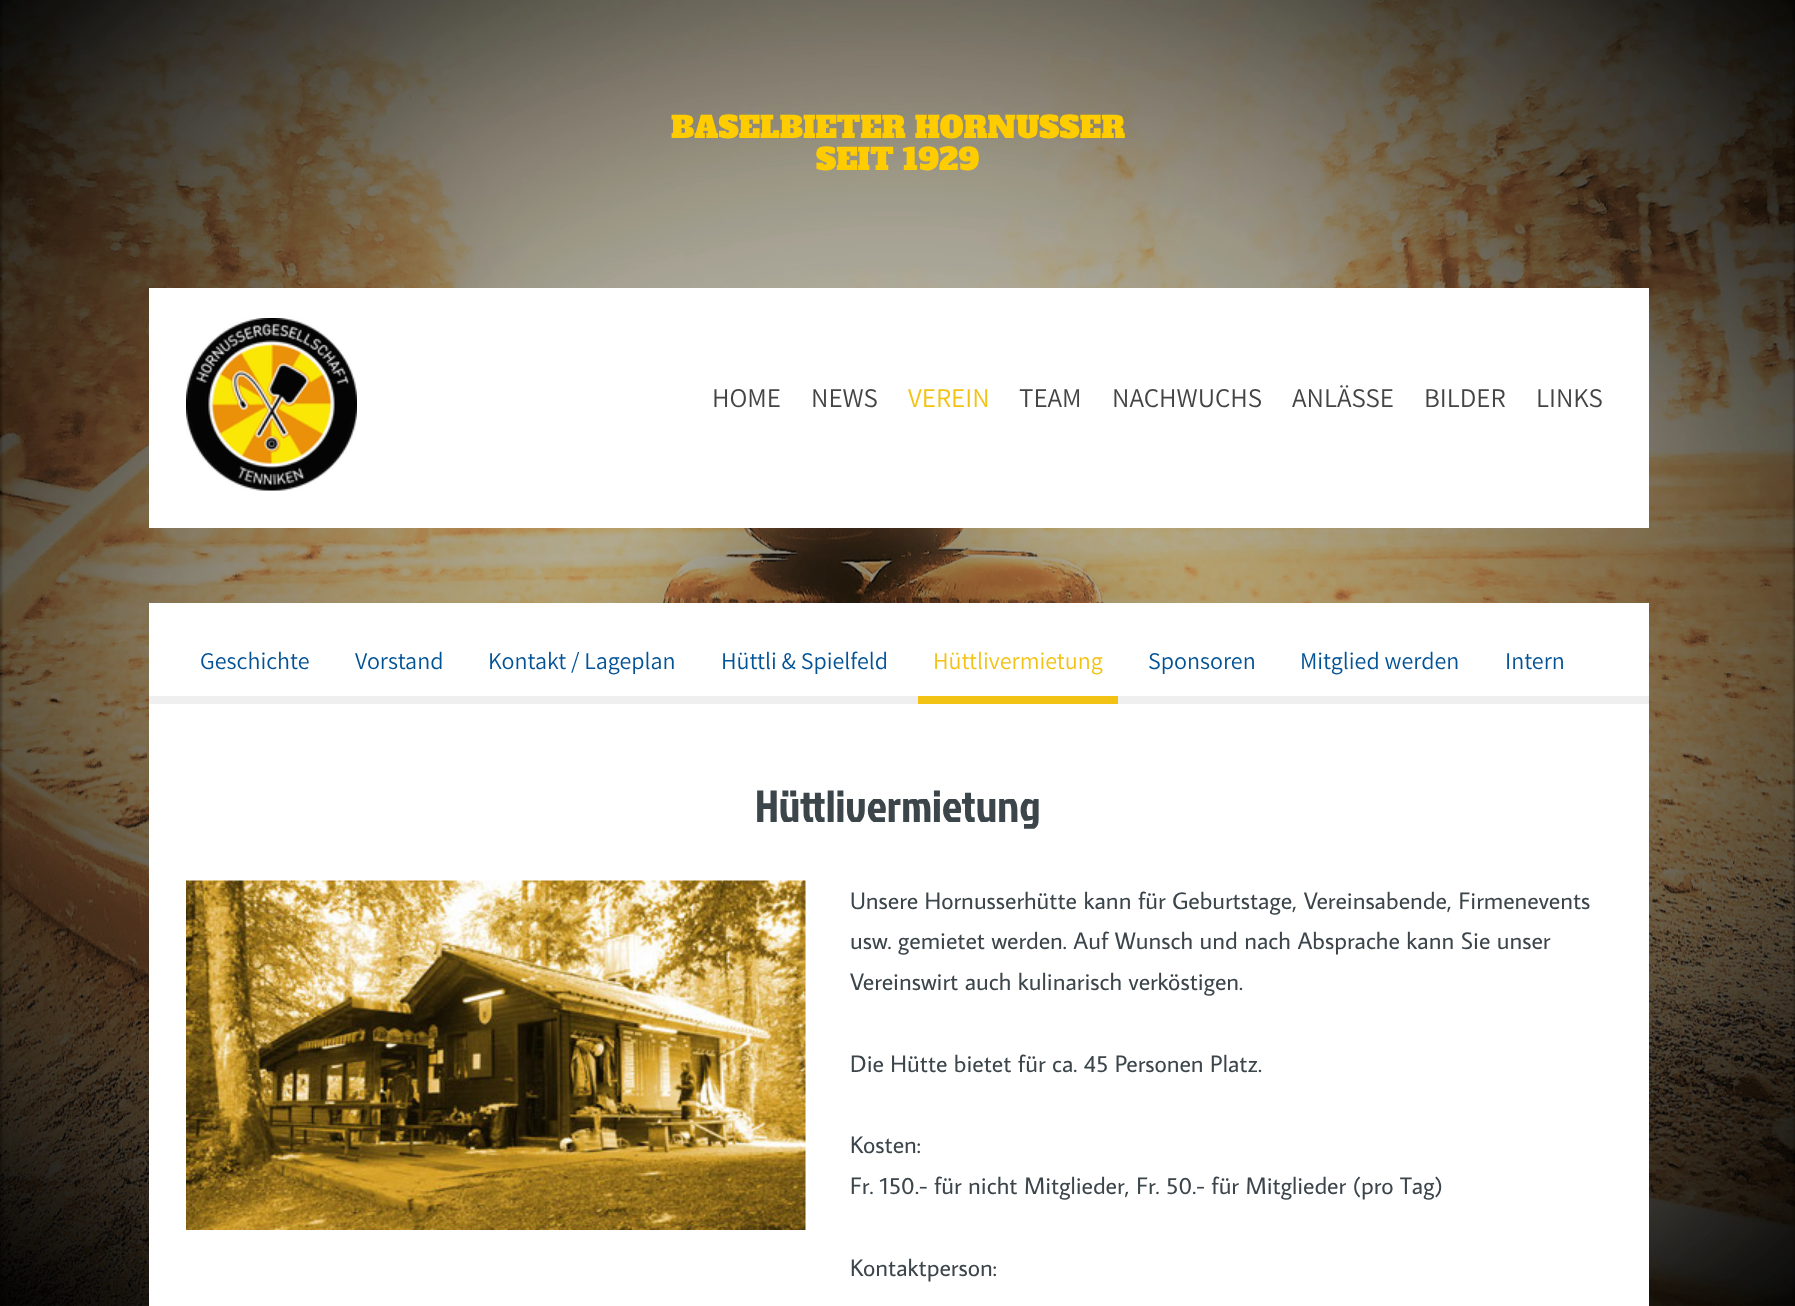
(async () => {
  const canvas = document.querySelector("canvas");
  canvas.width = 1795;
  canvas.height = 1306;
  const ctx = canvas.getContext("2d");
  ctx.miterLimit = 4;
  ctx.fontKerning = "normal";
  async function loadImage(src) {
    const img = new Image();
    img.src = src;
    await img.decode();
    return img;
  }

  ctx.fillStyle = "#ffffff";
  ctx.fillRect(0, 0, 1795, 1306);
  ctx.drawImage(await loadImage("img/1.png"), 0, 0, 1795, 1306);
  ctx.fillRect(149, 288, 1500, 240);
  ctx.drawImage(await loadImage("img/2.png"), 186, 318, 171, 173);
  for (const [x, y, w, h, color] of [
    [149, 603, 1500, 703, "#ffffff"],
    [149, 696, 1500, 8, "#efefef"],
    [918, 696, 200, 8, "#f2c314"],
  ]) {
    ctx.fillStyle = color;
    ctx.fillRect(x, y, w, h);
  }
  ctx.drawImage(await loadImage("img/3.png"), 186, 880, 620, 350);
  ctx.font = "30px Alfa Slab One";
  ctx.fillStyle = "#ffcc00";
  ctx.fillText("BASELBIETER HORNUSSER", 671, 138);
  ctx.fillText("SEIT 1929", 816, 170);
  ctx.font = "200 27px Assistant";
  ctx.fillStyle = "#444444";
  ctx.fillText("HOME", 712, 407);
  ctx.fillText("NEWS", 811, 407);
  ctx.fillStyle = "#f2c314";
  ctx.fillText("VEREIN", 908, 407);
  ctx.fillStyle = "#444444";
  for (const [text, x, y] of [
    ["TEAM", 1019, 407],
    ["NACHWUCHS", 1112, 407],
    ["ANLÄSSE", 1292, 407],
    ["BILDER", 1424, 407],
    ["LINKS", 1536, 407],
  ]) {
    ctx.fillText(text, x, y);
  }
  ctx.font = "200 24px Assistant";
  ctx.fillStyle = "#025296";
  for (const [text, x, y] of [
    ["Geschichte", 200, 669],
    ["Vorstand", 355, 669],
    ["Kontakt / Lageplan", 488, 669],
    ["Hüttli & Spielfeld", 721, 669],
  ]) {
    ctx.fillText(text, x, y);
  }
  ctx.fillStyle = "#f2c314";
  ctx.fillText("Hüttlivermietung", 933, 669);
  ctx.fillStyle = "#025296";
  for (const [text, x, y] of [
    ["Sponsoren", 1148, 669],
    ["Mitglied werden", 1300, 669],
    ["Intern", 1505, 669],
  ]) {
    ctx.fillText(text, x, y);
  }
  ctx.font = "45px Jockey One";
  ctx.fillStyle = "#3b454a";
  ctx.fillText("Hüttlivermietung", 755, 822);
  ctx.font = "24px Average Sans";
  for (const [text, x, y] of [
    ["Unsere Hornusserhütte kann für Geburtstage, Vereinsabende, Firmenevents", 850, 909],
    ["usw. gemietet werden. Auf Wunsch und nach Absprache kann Sie unser", 850, 949],
    ["Vereinswirt auch kulinarisch verköstigen.", 850, 990],
    ["Die Hütte bietet für ca. 45 Personen Platz.", 850, 1072],
    ["Kosten:", 850, 1153],
    ["Fr. 150.- für nicht Mitglieder, Fr. 50.- für Mitglieder (pro Tag)", 850, 1194],
    ["Kontaktperson:", 850, 1276],
  ]) {
    ctx.fillText(text, x, y);
  }
})();
